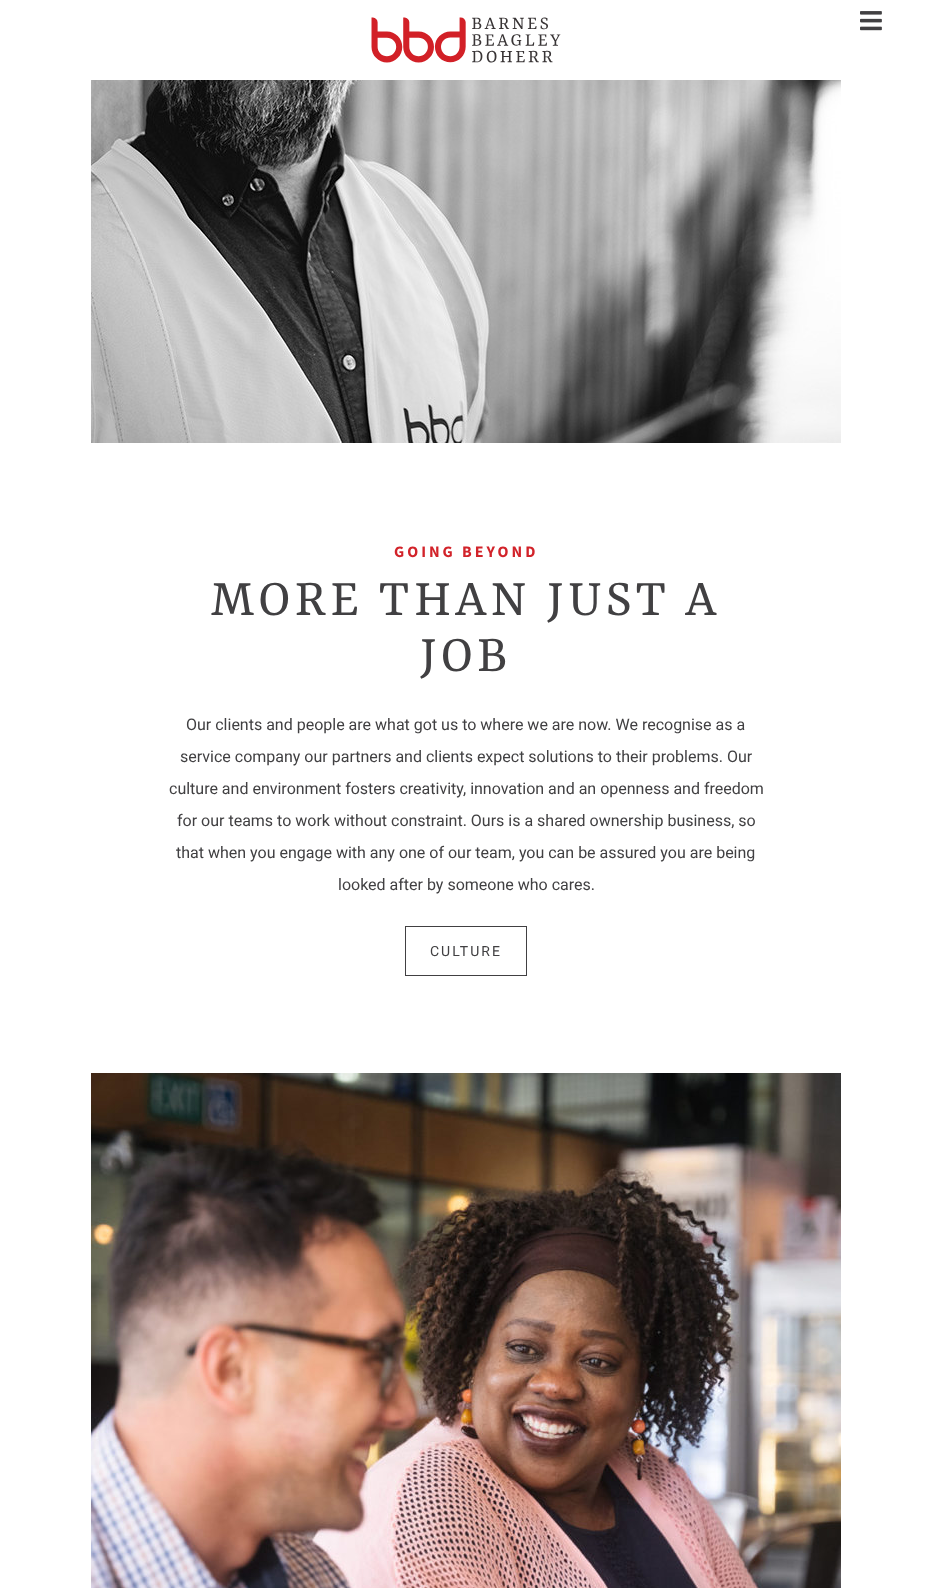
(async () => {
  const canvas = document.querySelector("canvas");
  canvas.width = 932;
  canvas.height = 1588;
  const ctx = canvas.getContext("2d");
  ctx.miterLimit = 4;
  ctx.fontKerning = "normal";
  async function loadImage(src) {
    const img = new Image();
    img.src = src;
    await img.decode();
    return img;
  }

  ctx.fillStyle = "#ffffff";
  ctx.fillRect(0, 0, 932, 1588);
  ctx.drawImage(await loadImage("img/1.png"), 371, 17, 190, 46);
  ctx.drawImage(await loadImage("img/2.png"), 860, 11, 22, 20);
  ctx.drawImage(await loadImage("img/3.png"), 91, 80, 750, 363);
  ctx.strokeStyle = "#414042";
  ctx.strokeRect(405.5, 926.5, 121, 49);
  ctx.drawImage(await loadImage("img/4.png"), 91, 1073, 750, 515);
  ctx.letterSpacing = "3px";
  ctx.font = "bold 16px Source Sans Pro";
  ctx.fillStyle = "#d2232a";
  ctx.fillText("GOING BEYOND", 394, 557);
  ctx.letterSpacing = "4px";
  ctx.font = "56px Yrsa";
  ctx.fillStyle = "#414042";
  ctx.fillText("MORE THAN JUST A", 211, 615);
  ctx.fillText("JOB", 420, 671);
  ctx.letterSpacing = "0px";
  ctx.font = "16px Roboto";
  for (const [text, x, y] of [
    ["Our clients and people are what got us to where we are now. We recognise as a", 186, 730],
    ["service company our partners and clients expect solutions to their problems. Our", 180, 762],
    ["culture and environment fosters creativity, innovation and an openness and freedom", 169, 794],
    ["for our teams to work without constraint. Ours is a shared ownership business, so", 177, 826],
    ["that when you engage with any one of our team, you can be assured you are being", 176, 858],
    ["looked after by someone who cares.", 338, 890],
  ]) {
    ctx.fillText(text, x, y);
  }
  ctx.letterSpacing = "2px";
  ctx.font = "14px Roboto";
  ctx.fillText("CULTURE", 430, 956);
})();
